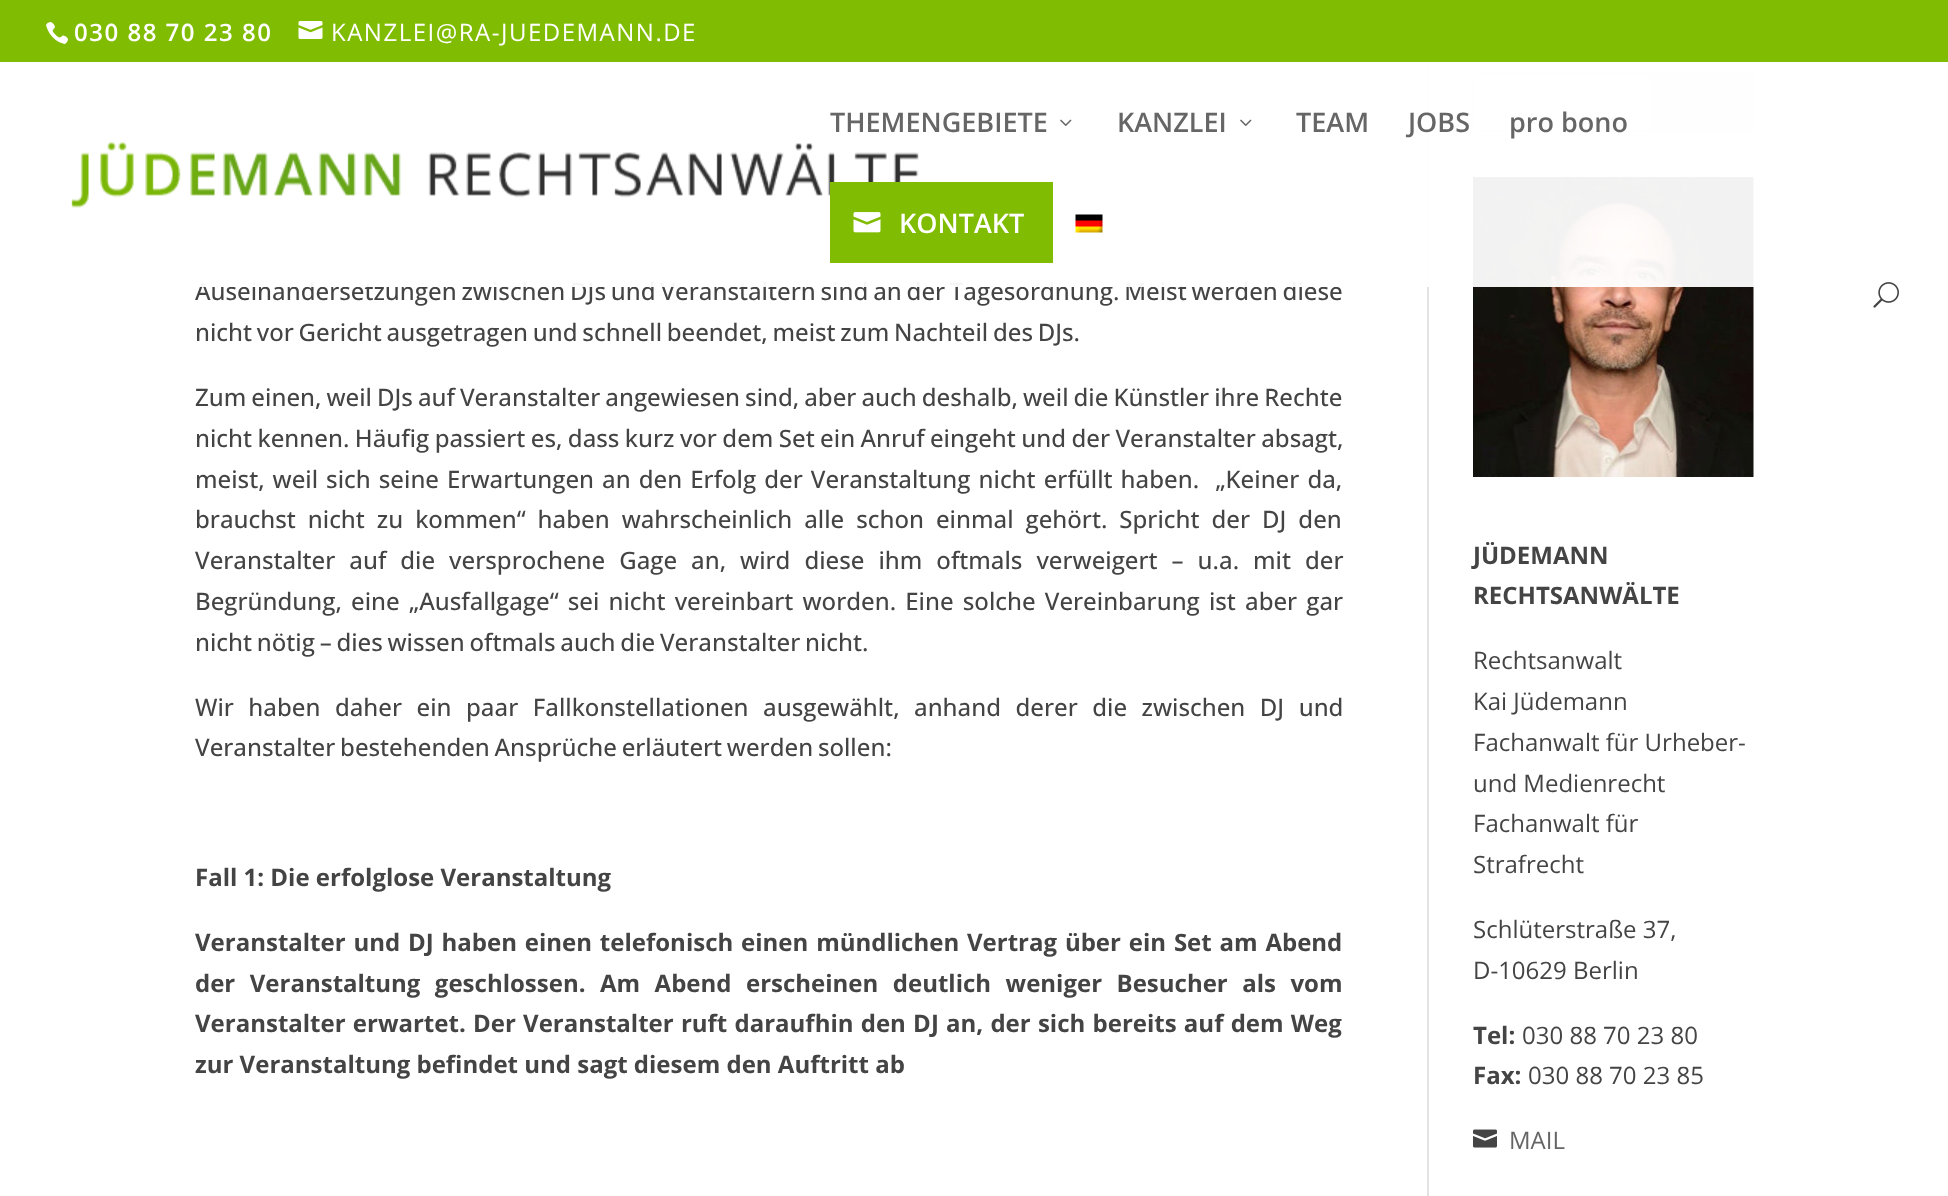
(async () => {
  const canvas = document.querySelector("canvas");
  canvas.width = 1948;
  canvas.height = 1196;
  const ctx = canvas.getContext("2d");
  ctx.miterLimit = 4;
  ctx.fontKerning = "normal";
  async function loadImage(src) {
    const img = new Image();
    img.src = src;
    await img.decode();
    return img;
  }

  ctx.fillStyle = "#ffffff";
  ctx.fillRect(0, 0, 1948, 1196);
  ctx.fillStyle = "#80bc02";
  ctx.fillRect(0, 0, 1948, 62);
  ctx.drawImage(await loadImage("img/1.png"), 46, 22, 22, 22);
  ctx.drawImage(await loadImage("img/2.png"), 298, 21, 25, 18);
  ctx.drawImage(await loadImage("img/7.png"), 1873, 282, 26, 26);
  ctx.fillStyle = "#e2e2e2";
  ctx.fillRect(1427, 62, 2, 1134);
  ctx.beginPath();
  ctx.roundRect(1474, 73, 279, 58, 4);
  ctx.strokeStyle = "#dddddd";
  ctx.lineWidth = 2;
  ctx.stroke();
  ctx.fillStyle = "#dddddd";
  ctx.beginPath();
  ctx.roundRect(1650, 73, 103, 58, [0, 4, 4, 0]);
  ctx.fill();
  ctx.stroke();
  ctx.drawImage(await loadImage("img/8.png"), 1473, 177, 281, 300);
  ctx.drawImage(await loadImage("img/9.png"), 1473, 1129, 24, 19);
  ctx.letterSpacing = "1.5px";
  ctx.font = "600 24px Open Sans";
  ctx.fillStyle = "#ffffff";
  ctx.fillText("030 88 70 23 80", 74, 41);
  ctx.font = "24px Open Sans";
  ctx.fillText("KANZLEI@RA-JUEDEMANN.DE", 331, 41);
  ctx.letterSpacing = "0px";
  ctx.wordSpacing = "-1.4px";
  ctx.font = "500 24px Open Sans";
  ctx.fillStyle = "#444444";
  ctx.fillText("Auseinandersetzungen zwischen DJs und Veranstaltern sind an der Tagesordnung. Meist werden diese", 195, 300);
  ctx.fillStyle = "rgba(255, 255, 255, 0.95)";
  ctx.fillRect(199, 62, 1555, 225);
  ctx.drawImage(await loadImage("img/6.png"), 1075, 214, 28, 19);
  ctx.drawImage(await loadImage("img/3.png"), 71, 141, 848, 67);
  ctx.fillStyle = "#80bc02";
  ctx.fillRect(830, 182, 223, 81);
  ctx.drawImage(await loadImage("img/5.png"), 853, 212, 28, 21);
  ctx.wordSpacing = "0px";
  ctx.font = "600 27px Open Sans";
  ctx.fillStyle = "#ffffff";
  ctx.fillText("KONTAKT", 899, 233);
  ctx.fillStyle = "#666666";
  for (const [text, x, y] of [
    ["pro bono", 1509, 132],
    ["JOBS", 1408, 132],
    ["TEAM", 1296, 132],
  ]) {
    ctx.fillText(text, x, y);
  }
  ctx.drawImage(await loadImage("img/4.png"), 1240, 119, 12, 7);
  ctx.fillText("KANZLEI", 1117, 132);
  ctx.drawImage(await loadImage("img/4.png"), 1060, 119, 12, 7);
  ctx.fillText("THEMENGEBIETE", 830, 132);
  ctx.wordSpacing = "-1.5px";
  ctx.font = "500 24px Open Sans";
  ctx.fillStyle = "#444444";
  ctx.fillText("nicht vor Gericht ausgetragen und schnell beendet, meist zum Nachteil des DJs.", 195, 341);
  ctx.wordSpacing = "-1.2px";
  ctx.fillText("Zum einen, weil DJs auf Veranstalter angewiesen sind, aber auch deshalb, weil die Künstler ihre Rechte", 195, 406);
  ctx.wordSpacing = "-0.8px";
  ctx.fillText("nicht kennen. Häufig passiert es, dass kurz vor dem Set ein Anruf eingeht und der Veranstalter absagt,", 195, 447);
  ctx.wordSpacing = "1.8px";
  ctx.fillText("meist, weil sich seine Erwartungen an den Erfolg der Veranstaltung nicht erfüllt haben.  „Keiner da,", 195, 488);
  ctx.wordSpacing = "5.75px";
  ctx.fillText("brauchst nicht zu kommen“ haben wahrscheinlich alle schon einmal gehört. Spricht der DJ den", 195, 528);
  ctx.wordSpacing = "7.75px";
  ctx.fillText("Veranstalter auf die versprochene Gage an, wird diese ihm oftmals verweigert – u.a. mit der", 195, 569);
  ctx.wordSpacing = "2.9px";
  ctx.fillText("Begründung, eine „Ausfallgage“ sei nicht vereinbart worden. Eine solche Vereinbarung ist aber gar", 195, 610);
  ctx.wordSpacing = "-1.5px";
  ctx.fillText("nicht nötig – dies wissen oftmals auch die Veranstalter nicht.", 195, 651);
  ctx.wordSpacing = "8.25px";
  ctx.fillText("Wir haben daher ein paar Fallkonstellationen ausgewählt, anhand derer die zwischen DJ und", 195, 716);
  ctx.wordSpacing = "-1.5px";
  ctx.fillText("Veranstalter bestehenden Ansprüche erläutert werden sollen:", 195, 756);
  ctx.wordSpacing = "0px";
  ctx.font = "bold 24px Open Sans";
  ctx.fillText("Fall 1: Die erfolglose Veranstaltung", 195, 886);
  ctx.wordSpacing = "1.6px";
  ctx.fillText("Veranstalter und DJ haben einen telefonisch einen mündlichen Vertrag über ein Set am Abend", 195, 951);
  ctx.wordSpacing = "8.25px";
  ctx.fillText("der Veranstaltung geschlossen. Am Abend erscheinen deutlich weniger Besucher als vom", 195, 992);
  ctx.wordSpacing = "1px";
  ctx.fillText("Veranstalter erwartet. Der Veranstalter ruft daraufhin den DJ an, der sich bereits auf dem Weg", 195, 1032);
  ctx.wordSpacing = "0px";
  for (const [text, x, y] of [
    ["zur Veranstaltung befindet und sagt diesem den Auftritt ab", 195, 1073],
    ["JÜDEMANN", 1473, 564],
    ["RECHTSANWÄLTE", 1473, 604],
  ]) {
    ctx.fillText(text, x, y);
  }
  ctx.font = "24px Open Sans";
  for (const [text, x, y] of [
    ["Rechtsanwalt", 1473, 669],
    ["Kai Jüdemann", 1473, 710],
    ["Fachanwalt für Urheber-", 1473, 751],
    ["und Medienrecht", 1473, 792],
    ["Fachanwalt für", 1473, 832],
    ["Strafrecht", 1473, 873],
    ["Schlüterstraße 37,", 1473, 938],
    ["D-10629 Berlin", 1473, 979],
  ]) {
    ctx.fillText(text, x, y);
  }
  ctx.font = "bold 24px Open Sans";
  ctx.fillText("Tel:", 1473, 1044);
  ctx.font = "24px Open Sans";
  ctx.fillText("030 88 70 23 80", 1522, 1044);
  ctx.font = "bold 24px Open Sans";
  ctx.fillText("Fax:", 1473, 1084);
  ctx.font = "24px Open Sans";
  ctx.fillText("030 88 70 23 85", 1528, 1084);
  ctx.fillStyle = "#666666";
  ctx.fillText("MAIL", 1509, 1149);
})();
